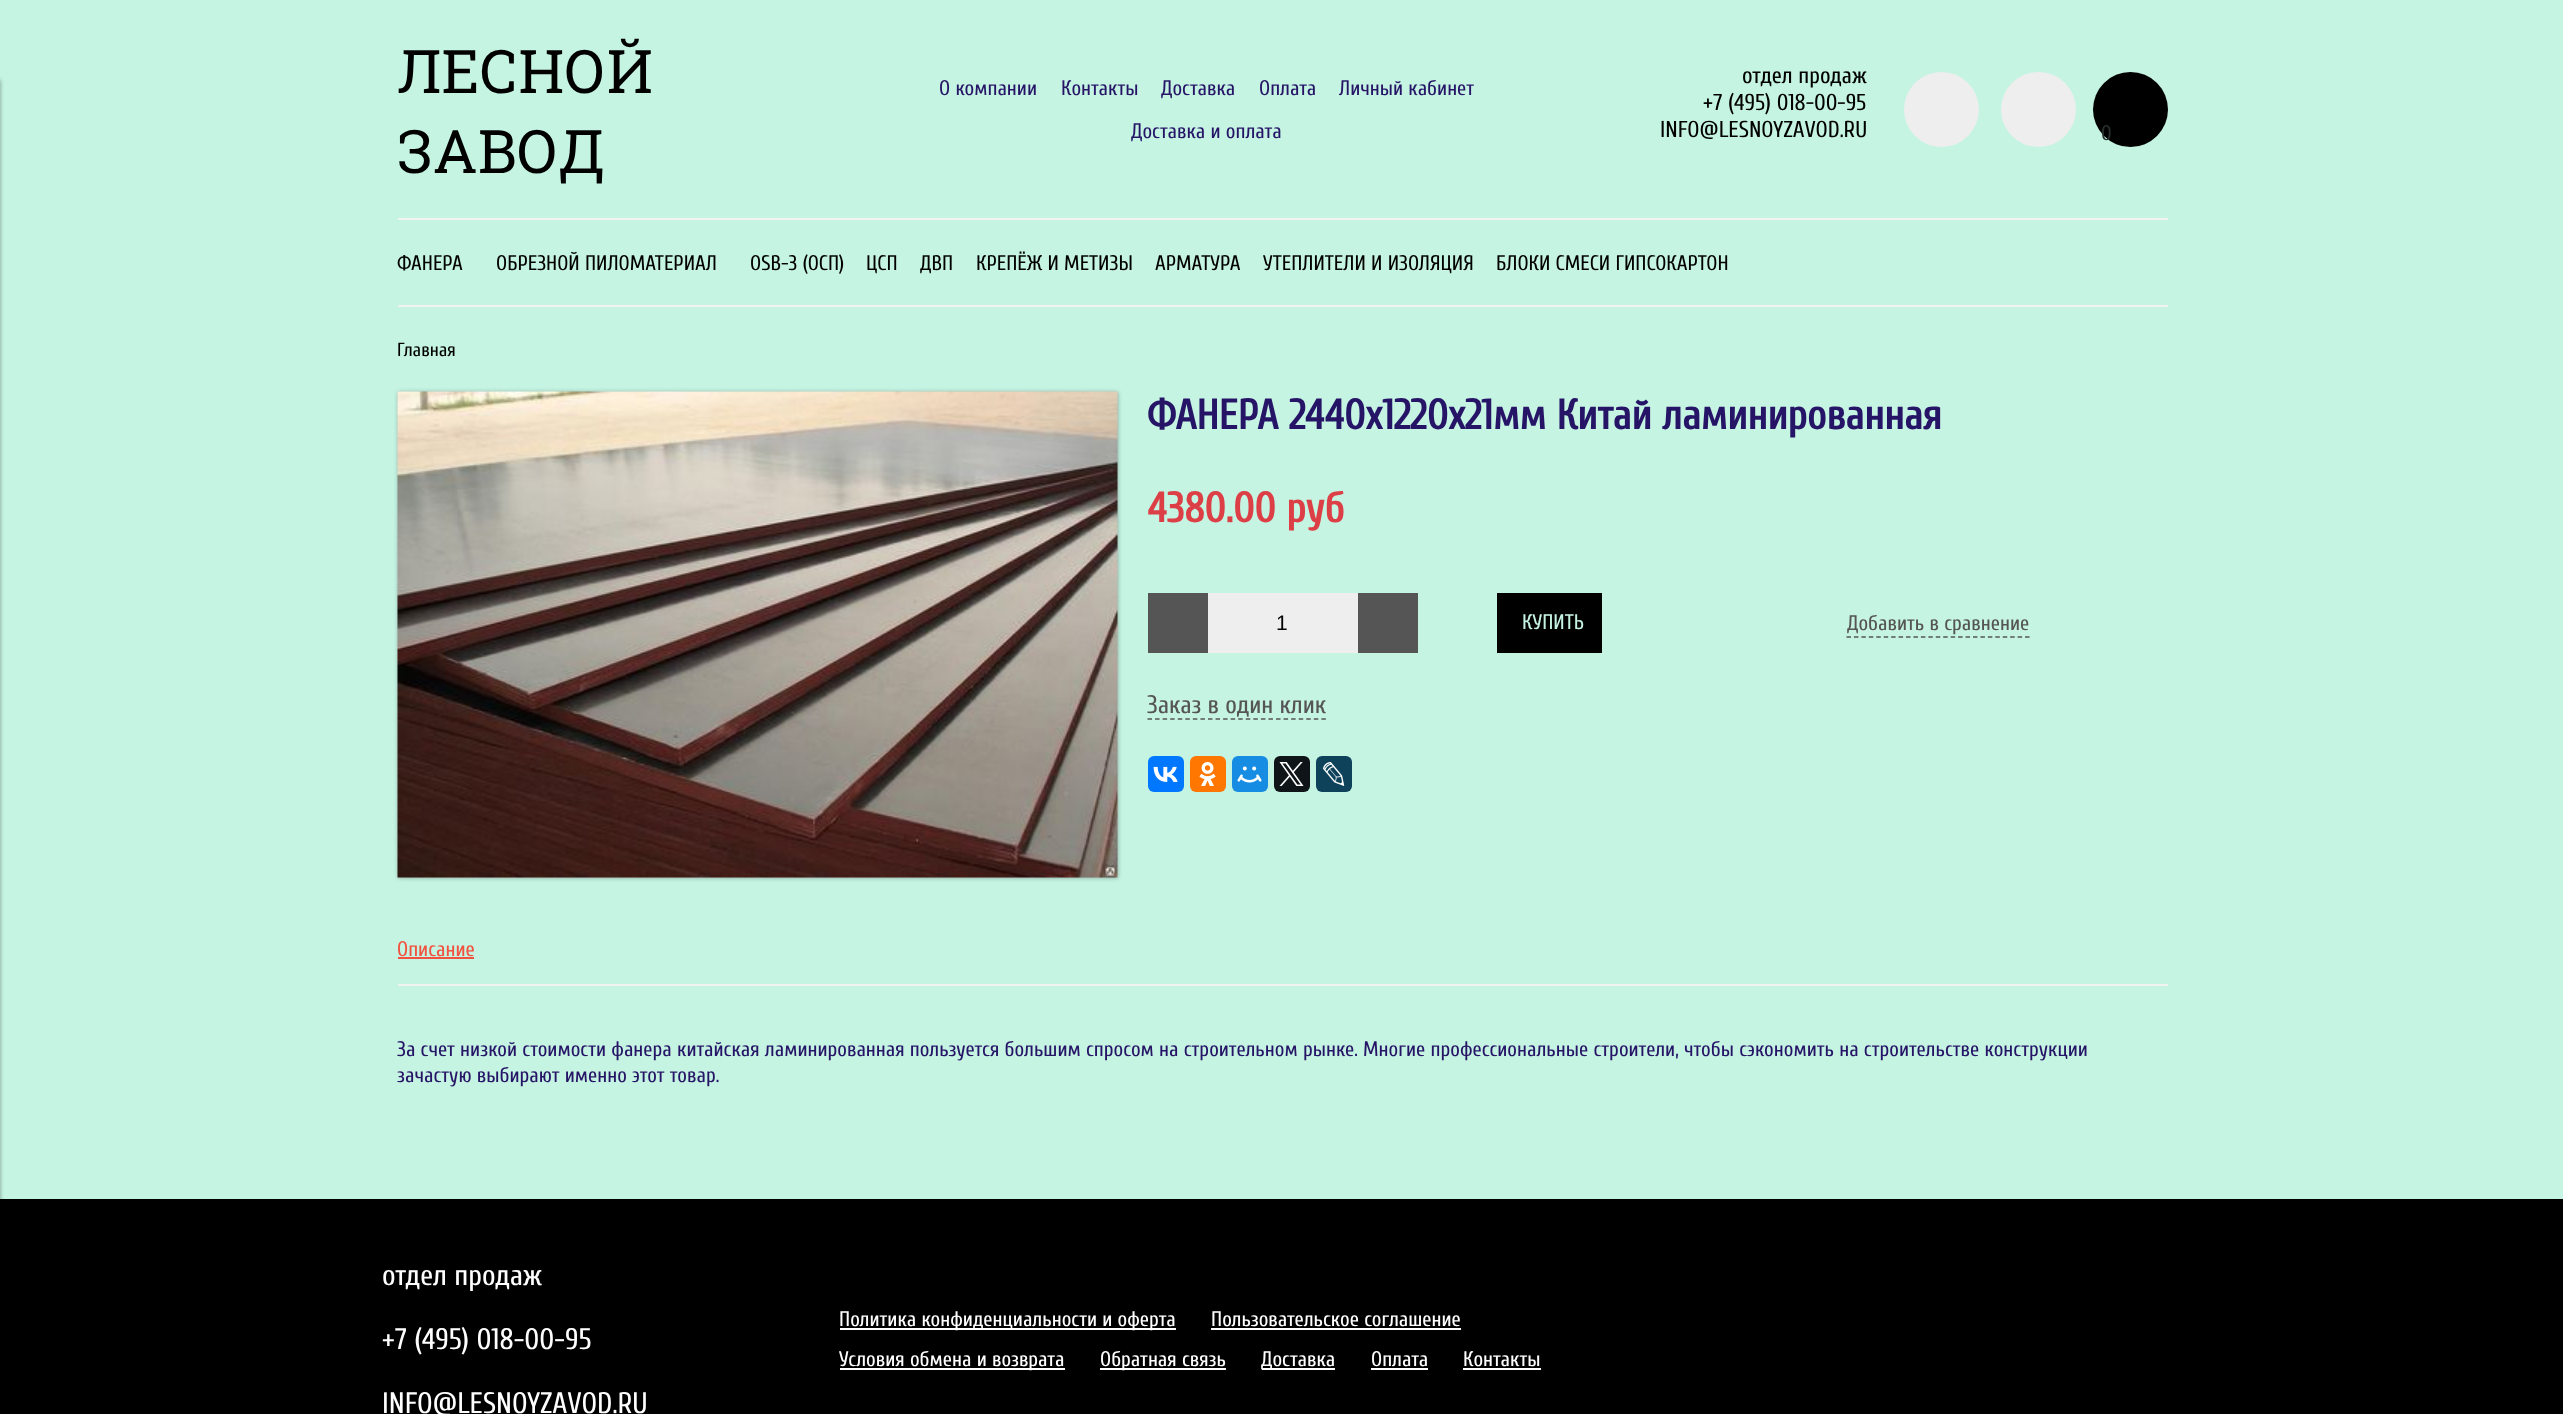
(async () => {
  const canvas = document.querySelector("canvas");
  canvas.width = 2563;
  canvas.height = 1414;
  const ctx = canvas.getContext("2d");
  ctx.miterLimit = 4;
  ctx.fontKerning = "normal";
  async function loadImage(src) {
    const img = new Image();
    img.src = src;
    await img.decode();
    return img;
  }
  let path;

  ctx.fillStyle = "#c6f4e3";
  ctx.fillRect(0, 0, 2563, 1414);
  ctx.fillStyle = "#000000";
  ctx.fillRect(0, 1199, 2563, 215);
  ctx.fillStyle = "rgba(0, 0, 0, 0.4)";
  ctx.filter = "blur(2px)";
  ctx.beginPath();
  ctx.rect(-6, 80, 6, 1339);
  ctx.fill();
  ctx.filter = "none";
  ctx.fillStyle = "#eeeeee";
  ctx.beginPath();
  ctx.arc(1941.5, 109.5, 37.5, 0, Math.PI * 2);
  ctx.fill();
  ctx.beginPath();
  ctx.arc(2038.5, 109.5, 37.5, 0, Math.PI * 2);
  ctx.fill();
  ctx.fillStyle = "#000000";
  ctx.beginPath();
  ctx.arc(2130.5, 109.5, 37.5, 0, Math.PI * 2);
  ctx.fill();
  ctx.fillStyle = "#f2f2f2";
  ctx.fillRect(398, 218, 1770, 2);
  ctx.fillRect(398, 305, 1770, 2);
  ctx.fillStyle = "rgba(0, 0, 0, 0.3)";
  ctx.filter = "blur(2px)";
  ctx.beginPath();
  ctx.rect(398, 392, 720, 486);
  ctx.fill();
  ctx.filter = "none";
  ctx.drawImage(await loadImage("img/1.png"), 397, 391, 721, 487);
  for (const [x, y, w, h, color] of [
    [1148, 593, 60, 60, "#555555"],
    [1208, 593, 150, 60, "#eeeeee"],
    [1358, 593, 60, 60, "#555555"],
    [1497, 593, 105, 60, "#000000"],
  ]) {
    ctx.fillStyle = color;
    ctx.fillRect(x, y, w, h);
  }
  path = new Path2D("M1846.5 637H2029.5");
  ctx.strokeStyle = "#555555";
  ctx.lineWidth = 1.5;
  ctx.setLineDash([4.5, 2.94]);
  ctx.stroke(path);
  path = new Path2D("M1147.5 719H1326");
  ctx.setLineDash([4.5, 3.06]);
  ctx.stroke(path);
  ctx.fillStyle = "#0077ff";
  ctx.beginPath();
  ctx.roundRect(1148, 756, 36, 36, 6);
  ctx.fill();
  ctx.drawImage(await loadImage("img/2.png"), 1153, 766, 25, 16);
  ctx.fillStyle = "#ff7700";
  ctx.beginPath();
  ctx.roundRect(1190, 756, 36, 36, 6);
  ctx.fill();
  ctx.drawImage(await loadImage("img/3.png"), 1199, 762, 17, 24);
  ctx.fillStyle = "#168de2";
  ctx.beginPath();
  ctx.roundRect(1232, 756, 36, 36, 6);
  ctx.fill();
  ctx.drawImage(await loadImage("img/4.png"), 1237, 766, 25, 17);
  ctx.fillStyle = "#0f1419";
  ctx.beginPath();
  ctx.roundRect(1274, 756, 36, 36, 6);
  ctx.fill();
  ctx.drawImage(await loadImage("img/5.png"), 1279, 762, 25, 24);
  ctx.fillStyle = "#0d425a";
  ctx.beginPath();
  ctx.roundRect(1316, 756, 36, 36, 6);
  ctx.fill();
  ctx.drawImage(await loadImage("img/6.png"), 1323, 762, 22, 24);
  for (const [x, y, w, h, color] of [
    [398, 984, 1770, 2, "#f2f2f2"],
    [398, 957, 76, 2, "#f2513f"],
    [840, 1328, 336, 2, "#ffffff"],
    [1211, 1328, 250, 2, "#ffffff"],
    [840, 1368, 225, 2, "#ffffff"],
    [1100, 1368, 126, 2, "#ffffff"],
    [1262, 1368, 73, 2, "#ffffff"],
    [1371, 1368, 57, 2, "#ffffff"],
    [1463, 1368, 78, 2, "#ffffff"],
  ]) {
    ctx.fillStyle = color;
    ctx.fillRect(x, y, w, h);
  }
  ctx.font = "60px Roboto Slab";
  ctx.fillStyle = "#000000";
  ctx.fillText("ЛЕСНОЙ", 397, 93);
  ctx.fillText("ЗАВОД", 397, 173);
  ctx.font = "21px Cuprum";
  ctx.fillStyle = "#261567";
  for (const [text, x, y] of [
    ["О компании", 939, 95],
    ["Контакты", 1061, 95],
    ["Доставка", 1161, 95],
    ["Оплата", 1259, 95],
    ["Личный кабинет", 1339, 95],
    ["Доставка и оплата", 1131, 138],
  ]) {
    ctx.fillText(text, x, y);
  }
  ctx.font = "23px Cuprum";
  ctx.fillStyle = "#000000";
  for (const [text, x, y] of [
    ["отдел продаж", 1742, 83],
    ["+7 (495) 018-00-95", 1703, 110],
    ["INFO@LESNOYZAVOD.RU", 1660, 137],
  ]) {
    ctx.fillText(text, x, y);
  }
  ctx.font = "21px Cuprum";
  ctx.fillStyle = "#27302d";
  ctx.fillText("0", 2101, 140);
  ctx.fillStyle = "#000000";
  for (const [text, x, y] of [
    ["ФАНЕРА", 397, 270],
    ["ОБРЕЗНОЙ ПИЛОМАТЕРИАЛ", 496, 270],
    ["OSB-3 (ОСП)", 750, 270],
    ["ЦСП", 866, 270],
    ["ДВП", 920, 270],
    ["КРЕПЁЖ И МЕТИЗЫ", 976, 270],
    ["АРМАТУРА", 1155, 270],
    ["УТЕПЛИТЕЛИ И ИЗОЛЯЦИЯ", 1263, 270],
    ["БЛОКИ СМЕСИ ГИПСОКАРТОН", 1496, 270],
  ]) {
    ctx.fillText(text, x, y);
  }
  ctx.font = "19px Cuprum";
  ctx.fillText("Главная", 397, 356);
  ctx.font = "bold 42px Cuprum";
  ctx.fillStyle = "#261567";
  ctx.fillText("ФАНЕРА 2440х1220х21мм Китай ламинированная", 1147, 429);
  ctx.fillStyle = "#dd3f46";
  ctx.fillText("4380.00 руб", 1147, 522);
  ctx.font = "21px Liberation Sans";
  ctx.fillStyle = "#000000";
  ctx.fillText("1", 1276, 630);
  ctx.font = "21px Cuprum";
  ctx.fillStyle = "#c6f4e3";
  ctx.fillText("КУПИТЬ", 1522, 629);
  ctx.fillStyle = "#555555";
  ctx.fillText("Добавить в сравнение", 1847, 630);
  ctx.font = "25.25px Cuprum";
  ctx.fillText("Заказ в один клик", 1147, 713);
  ctx.font = "21px Cuprum";
  ctx.fillStyle = "#f2513f";
  ctx.fillText("Описание", 397, 956);
  ctx.fillStyle = "#261567";
  ctx.fillText("За счет низкой стоимости фанера китайская ламинированная пользуется большим спросом на строительном рынке. Многие профессиональные строители, чтобы сэкономить на строительстве конструкции", 397, 1056);
  ctx.fillText("зачастую выбирают именно этот товар.", 397, 1082);
  ctx.font = "29.5px Cuprum";
  ctx.fillStyle = "#ffffff";
  for (const [text, x, y] of [
    ["отдел продаж", 382, 1285],
    ["+7 (495) 018-00-95", 382, 1349],
    ["INFO@LESNOYZAVOD.RU", 382, 1413],
  ]) {
    ctx.fillText(text, x, y);
  }
  ctx.font = "21px Cuprum";
  for (const [text, x, y] of [
    ["Политика конфиденциальности и оферта", 839, 1326],
    ["Пользовательское соглашение", 1211, 1326],
    ["Условия обмена и возврата", 839, 1366],
    ["Обратная связь", 1100, 1366],
    ["Доставка", 1261, 1366],
    ["Оплата", 1371, 1366],
    ["Контакты", 1463, 1366],
  ]) {
    ctx.fillText(text, x, y);
  }
})();
